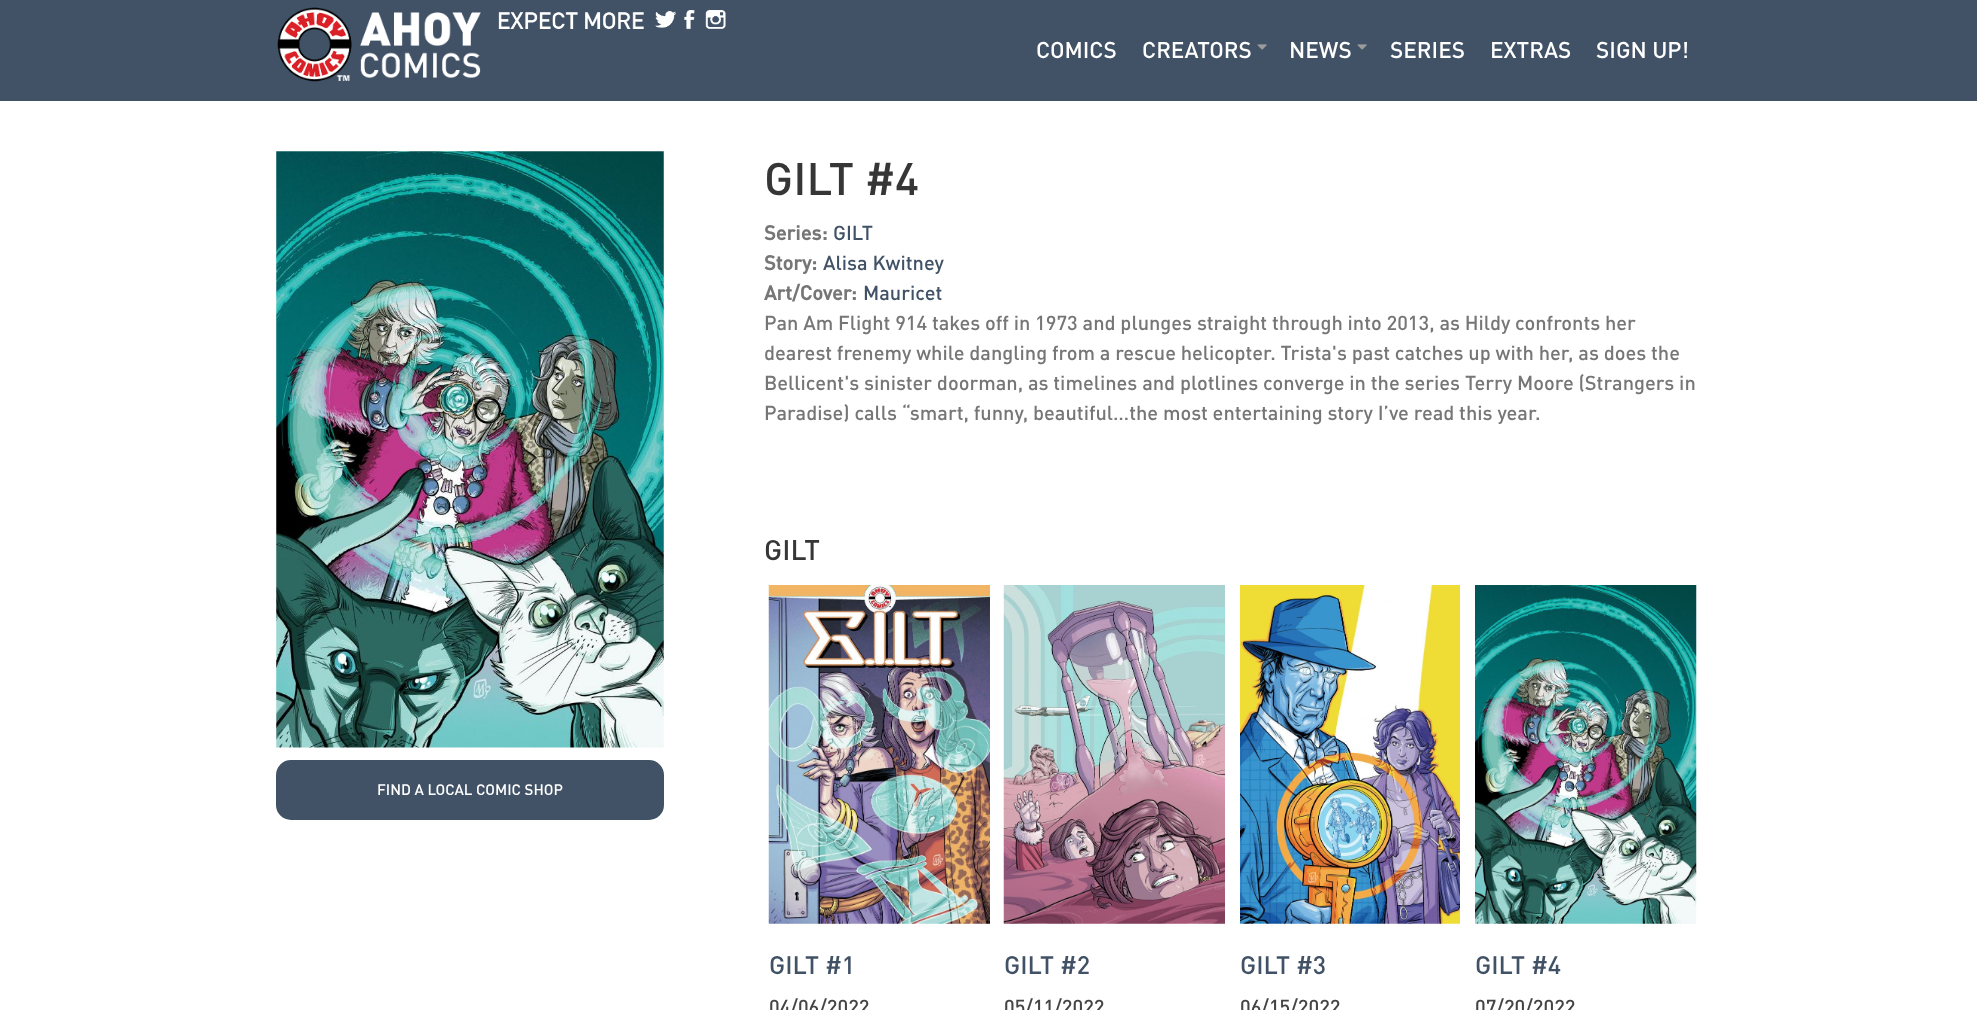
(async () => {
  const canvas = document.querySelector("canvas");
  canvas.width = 1977;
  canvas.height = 1010;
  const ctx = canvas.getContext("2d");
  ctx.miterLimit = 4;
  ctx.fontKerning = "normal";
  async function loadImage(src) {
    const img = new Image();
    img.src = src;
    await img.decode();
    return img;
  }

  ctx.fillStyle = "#ffffff";
  ctx.fillRect(0, 0, 1977, 1010);
  ctx.fillStyle = "#415266";
  ctx.fillRect(0, 0, 1977, 101);
  ctx.drawImage(await loadImage("img/1.png"), 277, 7, 204, 75);
  ctx.drawImage(await loadImage("img/2.png"), 498, 12, 146, 17);
  ctx.drawImage(await loadImage("img/3.png"), 655, 10, 22, 18);
  ctx.drawImage(await loadImage("img/4.png"), 684, 10, 11, 20);
  ctx.drawImage(await loadImage("img/5.png"), 705, 10, 21, 19);
  ctx.drawImage(await loadImage("img/6.png"), 1257, 44, 10, 6);
  ctx.drawImage(await loadImage("img/6.png"), 1357, 44, 10, 6);
  ctx.drawImage(await loadImage("img/7.png"), 276, 151, 388, 597);
  ctx.beginPath();
  ctx.roundRect(276, 760, 388, 60, 15);
  ctx.fill();
  ctx.drawImage(await loadImage("img/8.png"), 768, 585, 222, 339);
  ctx.drawImage(await loadImage("img/9.png"), 1003, 585, 222, 339);
  ctx.drawImage(await loadImage("img/10.png"), 1240, 585, 220, 339);
  ctx.drawImage(await loadImage("img/11.png"), 1475, 585, 222, 339);
  ctx.font = "500 22.5px DIN";
  ctx.fillStyle = "#ffffff";
  for (const [text, x, y] of [
    ["COMICS", 1036, 58],
    ["CREATORS", 1142, 58],
    ["NEWS", 1289, 58],
    ["SERIES", 1390, 58],
    ["EXTRAS", 1490, 58],
    ["SIGN UP!", 1596, 58],
  ]) {
    ctx.fillText(text, x, y);
  }
  ctx.font = "500 15px DIN";
  ctx.fillText("FIND A LOCAL COMIC SHOP", 377, 795);
  ctx.font = "500 45px DIN";
  ctx.fillStyle = "#363636";
  ctx.fillText("GILT #4", 764, 195);
  ctx.font = "bold 20px DIN";
  ctx.fillStyle = "#767676";
  ctx.fillText("Series:", 764, 240);
  ctx.font = "500 20px DIN";
  ctx.fillStyle = "#415266";
  ctx.fillText("GILT", 833, 240);
  ctx.font = "bold 20px DIN";
  ctx.fillStyle = "#767676";
  ctx.fillText("Story:", 764, 270);
  ctx.font = "500 20px DIN";
  ctx.fillStyle = "#415266";
  ctx.fillText("Alisa Kwitney", 823, 270);
  ctx.font = "bold 20px DIN";
  ctx.fillStyle = "#767676";
  ctx.fillText("Art/Cover:", 764, 300);
  ctx.font = "500 20px DIN";
  ctx.fillStyle = "#415266";
  ctx.fillText("Mauricet", 863, 300);
  ctx.fillStyle = "#767676";
  for (const [text, x, y] of [
    ["Pan Am Flight 914 takes off in 1973 and plunges straight through into 2013, as Hildy confronts her", 764, 330],
    ["dearest frenemy while dangling from a rescue helicopter. Trista's past catches up with her, as does the", 764, 360],
    ["Bellicent's sinister doorman, as timelines and plotlines converge in the series Terry Moore (Strangers in", 764, 390],
    ["Paradise) calls “smart, funny, beautiful…the most entertaining story I’ve read this year.", 764, 420],
  ]) {
    ctx.fillText(text, x, y);
  }
  ctx.font = "500 28px DIN";
  ctx.fillStyle = "#363636";
  ctx.fillText("GILT", 764, 560);
  ctx.font = "500 25px DIN";
  ctx.fillStyle = "#415266";
  ctx.fillText("GILT #1", 769, 974);
  ctx.font = "500 20px DIN";
  ctx.fillStyle = "#444444";
  ctx.fillText("04/06/2022", 769, 1014);
  ctx.font = "500 25px DIN";
  ctx.fillStyle = "#415266";
  ctx.fillText("GILT #2", 1004, 974);
  ctx.font = "500 20px DIN";
  ctx.fillStyle = "#444444";
  ctx.fillText("05/11/2022", 1004, 1014);
  ctx.font = "500 25px DIN";
  ctx.fillStyle = "#415266";
  ctx.fillText("GILT #3", 1240, 974);
  ctx.font = "500 20px DIN";
  ctx.fillStyle = "#444444";
  ctx.fillText("06/15/2022", 1240, 1014);
  ctx.font = "500 25px DIN";
  ctx.fillStyle = "#415266";
  ctx.fillText("GILT #4", 1475, 974);
  ctx.font = "500 20px DIN";
  ctx.fillStyle = "#444444";
  ctx.fillText("07/20/2022", 1475, 1014);
})();
